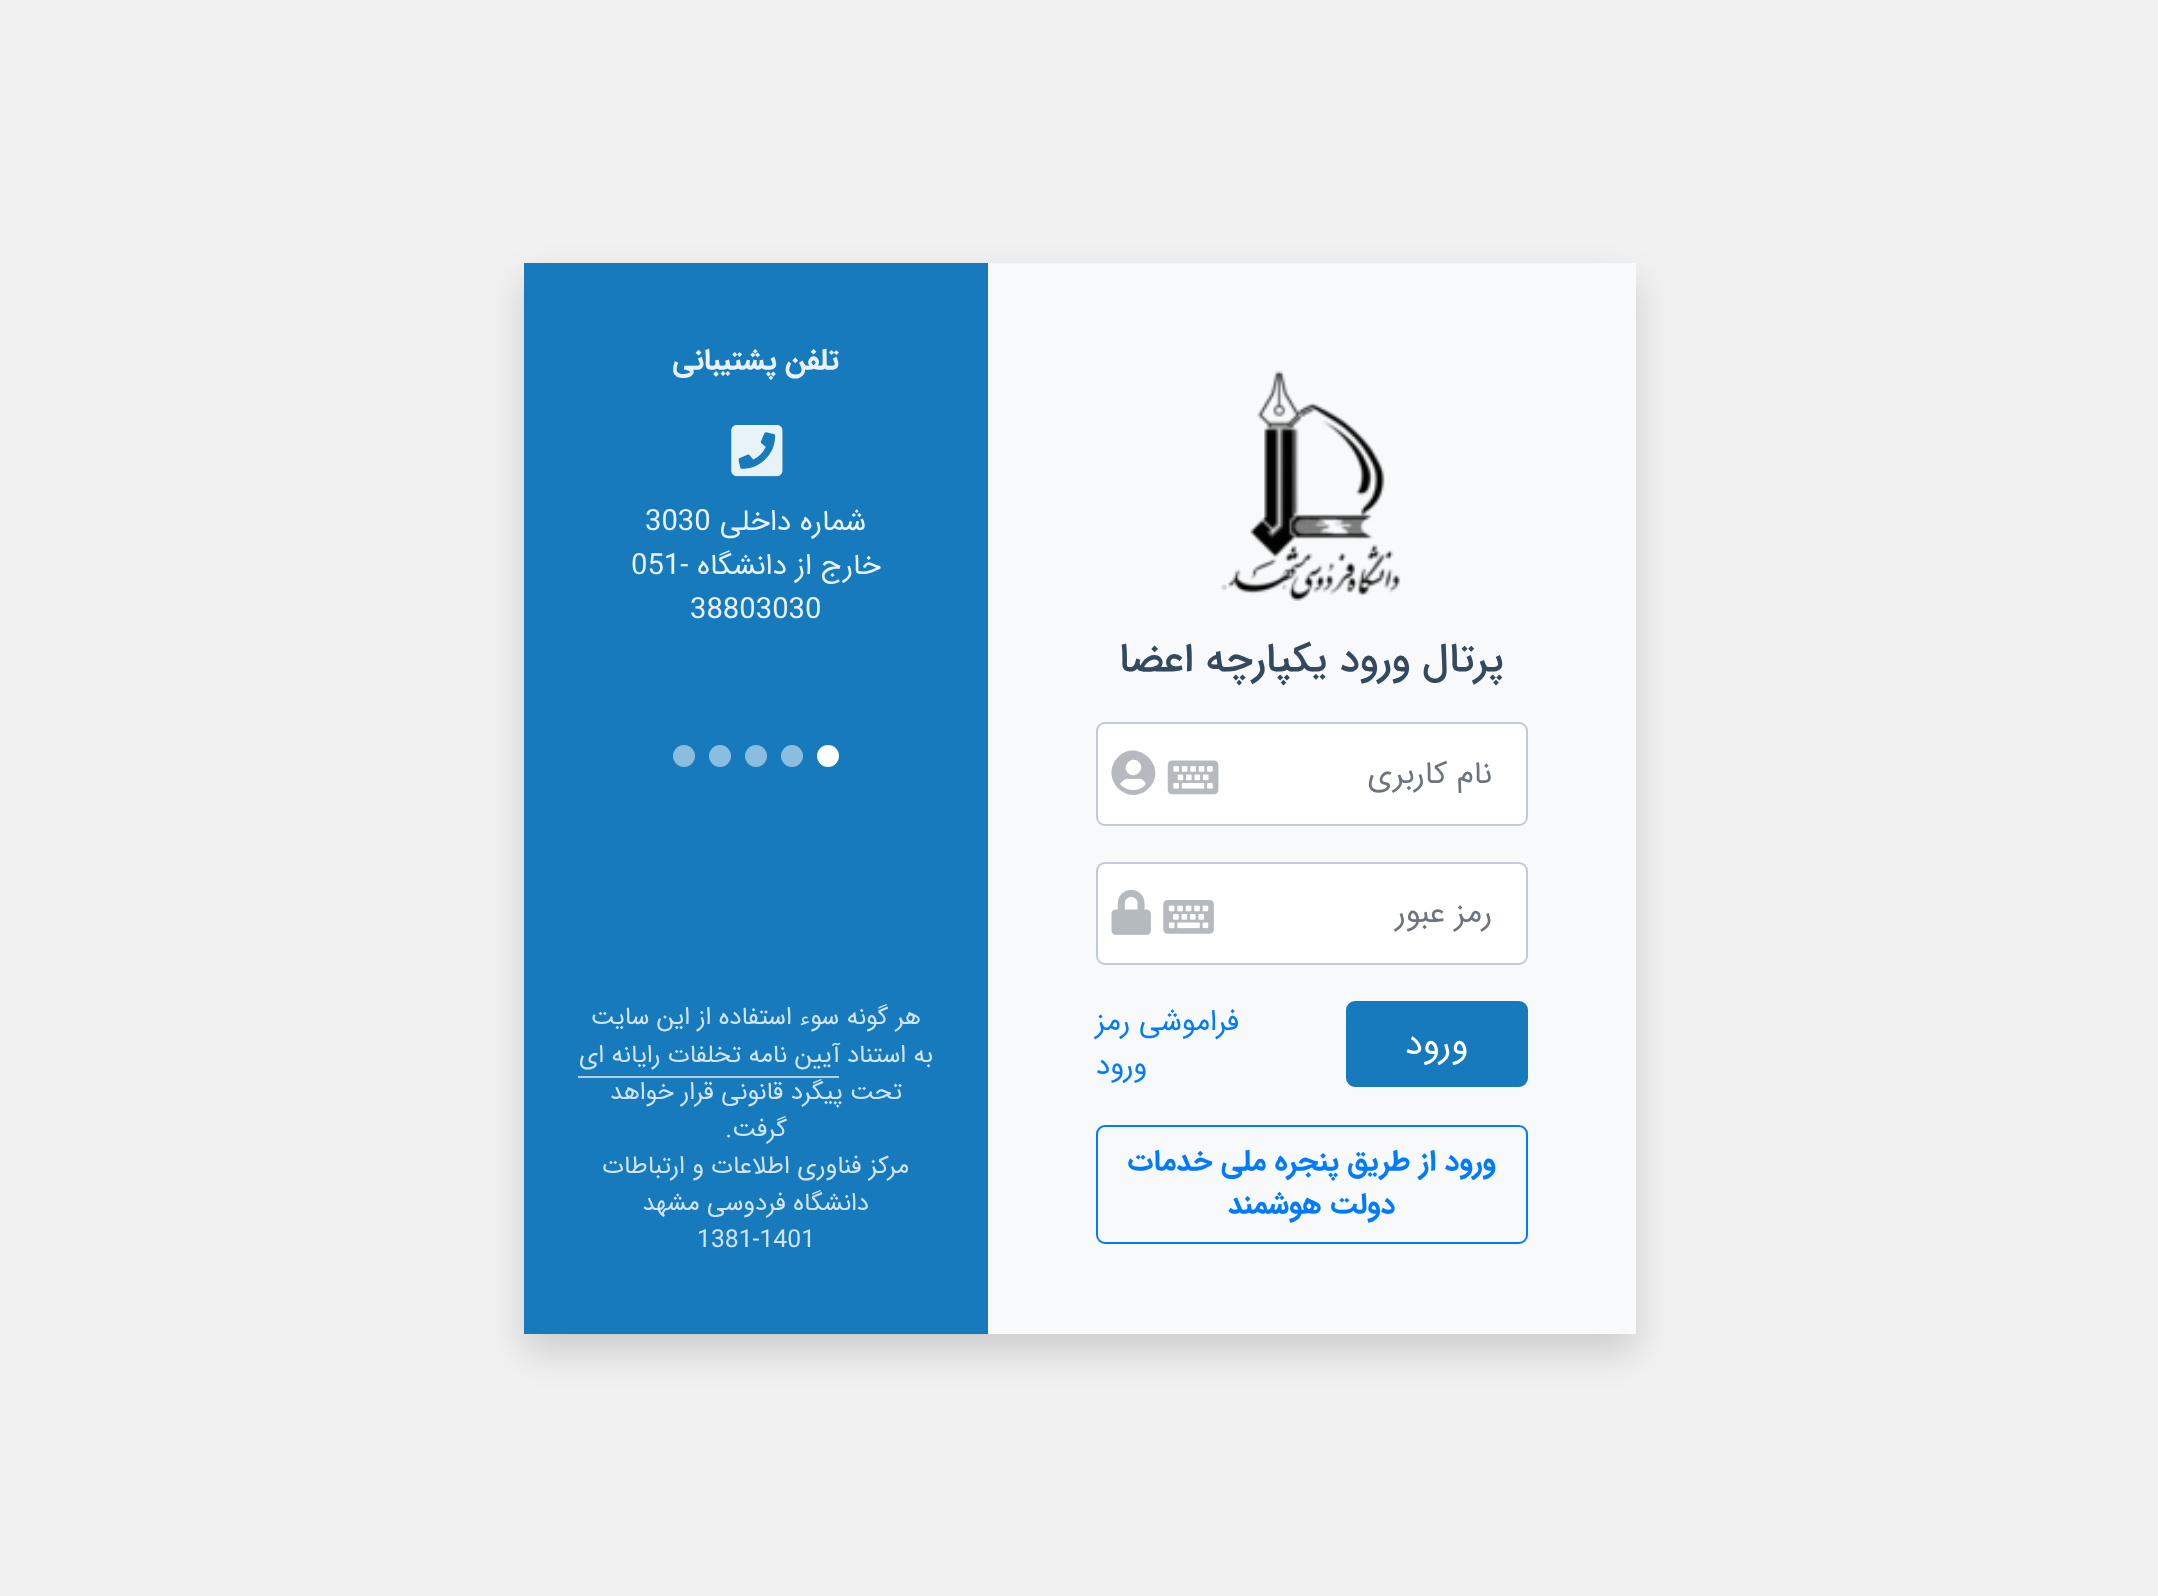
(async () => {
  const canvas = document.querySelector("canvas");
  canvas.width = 2158;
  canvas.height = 1596;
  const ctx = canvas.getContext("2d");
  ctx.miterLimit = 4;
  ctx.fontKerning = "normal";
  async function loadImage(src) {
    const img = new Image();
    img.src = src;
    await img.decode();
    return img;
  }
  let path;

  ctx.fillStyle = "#f1f1f1";
  ctx.fillRect(0, 0, 2158, 1596);
  ctx.fillStyle = "rgba(0, 0, 0, 0.15)";
  ctx.filter = "blur(18px)";
  ctx.beginPath();
  ctx.rect(524, 281, 1112, 1071);
  ctx.fill();
  ctx.filter = "none";
  ctx.fillStyle = "#f8f9fa";
  ctx.fillRect(988, 263, 648, 1071);
  ctx.drawImage(await loadImage("img/1.png"), 1221, 371, 180, 230);
  ctx.fillStyle = "#ffffff";
  ctx.beginPath();
  ctx.roundRect(1097, 723, 430, 102, 8);
  ctx.fill();
  ctx.strokeStyle = "#c2cad8";
  ctx.lineWidth = 2;
  ctx.stroke();
  ctx.drawImage(await loadImage("img/2.png"), 1167, 760, 52, 35);
  ctx.fillStyle = "#b6babe";
  path = new Path2D("M1118 757C1138 737 1169 768 1149 788C1128 809 1098 778 1118 757ZM1139 762C1132 755 1121 766 1128 773C1135 780 1146 769 1139 762ZM1120 784C1127 792 1140 792 1146 784C1145 781 1141 778 1137 779H1133H1129C1126 778 1122 781 1120 784Z");
  ctx.fill(path);
  ctx.fillStyle = "#ffffff";
  ctx.beginPath();
  ctx.roundRect(1097, 863, 430, 101, 8);
  ctx.fill();
  ctx.stroke();
  ctx.drawImage(await loadImage("img/3.png"), 1163, 900, 51, 34);
  ctx.drawImage(await loadImage("img/4.png"), 1111, 889, 40, 46);
  ctx.fillStyle = "#167abc";
  ctx.beginPath();
  ctx.roundRect(1347, 1002, 180, 84, 8);
  ctx.fill();
  ctx.strokeStyle = "#167abc";
  ctx.stroke();
  ctx.beginPath();
  ctx.roundRect(1097, 1126, 430, 117, 8);
  ctx.strokeStyle = "#007bff";
  ctx.stroke();
  ctx.fillRect(524, 263, 464, 1071);
  ctx.drawImage(await loadImage("img/5.png"), 731, 425, 52, 52);
  ctx.fillStyle = "#ffffff";
  ctx.beginPath();
  ctx.arc(828, 756, 11, 0, Math.PI * 2);
  ctx.fill();
  ctx.fillStyle = "#8bbdde";
  ctx.beginPath();
  ctx.arc(792, 756, 11, 0, Math.PI * 2);
  ctx.fill();
  ctx.beginPath();
  ctx.arc(756, 756, 11, 0, Math.PI * 2);
  ctx.fill();
  ctx.beginPath();
  ctx.arc(720, 756, 11, 0, Math.PI * 2);
  ctx.fill();
  ctx.beginPath();
  ctx.arc(684, 756, 11, 0, Math.PI * 2);
  ctx.fill();
  ctx.fillStyle = "#b6cdde";
  ctx.fillRect(578, 1076, 261, 2);
  ctx.direction = "rtl";
  ctx.font = "500 40.5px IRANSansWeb";
  ctx.fillStyle = "#34495e";
  ctx.fillText("پرتال ورود یکپارچه اعضا", 1504, 671);
  ctx.font = "31.5px IRANSansWeb";
  ctx.fillStyle = "#6c757d";
  ctx.fillText("نام کاربری", 1492, 783);
  ctx.fillText("رمز عبور", 1492, 922);
  ctx.font = "36px IRANSansWeb";
  ctx.fillStyle = "#ffffff";
  ctx.fillText("ورود", 1468, 1054);
  ctx.font = "29.25px IRANSansWeb";
  ctx.fillStyle = "#007bff";
  ctx.fillText("فراموشی رمز", 1239, 1030);
  ctx.fillText("ورود", 1147, 1074);
  ctx.font = "bold 29.25px IRANSansWeb";
  ctx.fillText("ورود از طریق پنجره ملی خدمات", 1496, 1170);
  ctx.fillText("دولت هوشمند", 1395, 1213);
  ctx.fillStyle = "#e8f2f8";
  ctx.fillText("تلفن پشتیبانی", 839, 369);
  ctx.font = "29.25px IRANSansWeb";
  ctx.fillText("شماره داخلی", 866, 530);
  ctx.direction = "ltr";
  ctx.fillText("3030", 645, 530);
  ctx.direction = "rtl";
  ctx.fillText("خارج از دانشگاه", 881, 574);
  ctx.direction = "ltr";
  ctx.fillText("051-", 631, 574);
  ctx.fillText("38803030", 690, 618);
  ctx.direction = "rtl";
  ctx.font = "24.75px IRANSansWeb";
  ctx.fillStyle = "#d0e4f2";
  for (const [text, x, y] of [
    ["هر گونه سوء استفاده از این سایت", 921, 1024],
    ["به استناد", 933, 1062],
    ["آیین نامه تخلفات رایانه ای", 840, 1062],
    ["تحت پیگرد قانونی قرار خواهد", 902, 1099],
    ["گرفت.", 787, 1136],
    ["مركز فناوری اطلاعات و ارتباطات", 909, 1173],
    ["دانشگاه فردوسی مشهد", 869, 1210],
  ]) {
    ctx.fillText(text, x, y);
  }
  ctx.direction = "ltr";
  ctx.fillText("1381-1401", 697, 1247);
})();
